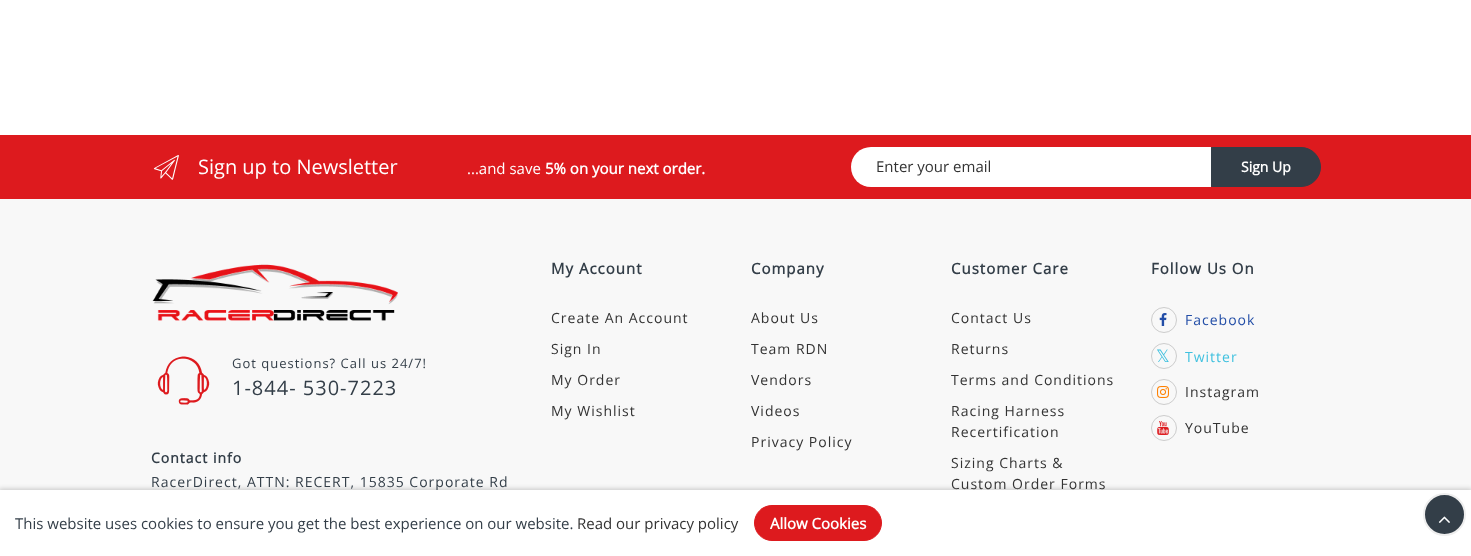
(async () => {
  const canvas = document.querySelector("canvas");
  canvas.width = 1471;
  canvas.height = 556;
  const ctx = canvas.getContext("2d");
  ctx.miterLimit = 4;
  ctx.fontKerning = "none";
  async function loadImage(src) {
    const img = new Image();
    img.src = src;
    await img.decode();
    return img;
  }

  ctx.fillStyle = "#ffffff";
  ctx.fillRect(0, 0, 1471, 556);
  ctx.fillStyle = "#dd1a1e";
  ctx.fillRect(0, 135, 1471, 64);
  ctx.drawImage(await loadImage("img/1.png"), 153, 155, 26, 25);
  ctx.fillStyle = "#ffffff";
  ctx.beginPath();
  ctx.roundRect(851, 147, 360, 40, [20, 0, 0, 20]);
  ctx.fill();
  ctx.fillStyle = "#333e48";
  ctx.beginPath();
  ctx.roundRect(1211.5, 147.5, 109, 39, [0, 19.5, 19.5, 0]);
  ctx.fill();
  ctx.strokeStyle = "#333e48";
  ctx.stroke();
  ctx.fillStyle = "#f8f8f8";
  ctx.fillRect(0, 199, 1471, 291);
  ctx.drawImage(await loadImage("img/2.png"), 152, 264, 246, 57);
  ctx.drawImage(await loadImage("img/3.png"), 157, 356, 53, 49);
  ctx.beginPath();
  ctx.arc(1164, 320, 12.5, 0, Math.PI * 2);
  ctx.strokeStyle = "#cccccc";
  ctx.stroke();
  ctx.drawImage(await loadImage("img/4.png"), 1159, 313, 8, 13);
  ctx.beginPath();
  ctx.arc(1164, 356, 12.5, 0, Math.PI * 2);
  ctx.stroke();
  ctx.beginPath();
  ctx.arc(1164, 392, 12.5, 0, Math.PI * 2);
  ctx.stroke();
  ctx.drawImage(await loadImage("img/5.png"), 1157, 386, 12, 12);
  ctx.beginPath();
  ctx.arc(1164, 428, 12.5, 0, Math.PI * 2);
  ctx.stroke();
  ctx.drawImage(await loadImage("img/6.png"), 1157, 421, 12, 14);
  ctx.fillStyle = "rgba(0, 0, 0, 0.2)";
  ctx.filter = "blur(2.5px)";
  ctx.beginPath();
  ctx.rect(-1, 489, 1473, 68);
  ctx.fill();
  ctx.filter = "none";
  ctx.font = "20px Open Sans";
  ctx.fillStyle = "#ffffff";
  ctx.fillText("Sign up to Newsletter", 198, 174);
  ctx.font = "15px Open Sans";
  ctx.fillText("...and save", 467, 174);
  ctx.font = "bold 15px Open Sans";
  ctx.fillText("5% on your next order.", 545, 174);
  ctx.font = "15px Open Sans";
  ctx.fillStyle = "#333333";
  ctx.fillText("Enter your email", 876, 172);
  ctx.font = "bold 14px Open Sans";
  ctx.fillStyle = "#ffffff";
  ctx.fillText("Sign Up", 1241, 172);
  ctx.letterSpacing = "1px";
  ctx.font = "13px Open Sans";
  ctx.fillStyle = "#333e48";
  ctx.fillText("Got questions? Call us 24/7!", 232, 368);
  ctx.font = "20px Open Sans";
  ctx.fillText("1-844- 530-7223", 232, 395);
  ctx.font = "bold 14px Open Sans";
  ctx.fillText("Contact info", 151, 463);
  ctx.font = "14px Open Sans";
  ctx.fillText("RacerDirect, ATTN: RECERT, 15835 Corporate Rd", 151, 487);
  ctx.font = "bold 15px Open Sans";
  ctx.fillText("My Account", 551, 274);
  ctx.font = "14px Open Sans";
  ctx.fillStyle = "#333333";
  for (const [text, x, y] of [
    ["Create An Account", 551, 323],
    ["Sign In", 551, 354],
    ["My Order", 551, 385],
    ["My Wishlist", 551, 416],
  ]) {
    ctx.fillText(text, x, y);
  }
  ctx.font = "bold 15px Open Sans";
  ctx.fillStyle = "#333e48";
  ctx.fillText("Company", 751, 274);
  ctx.font = "14px Open Sans";
  ctx.fillStyle = "#333333";
  for (const [text, x, y] of [
    ["About Us", 751, 323],
    ["Team RDN", 751, 354],
    ["Vendors", 751, 385],
    ["Videos", 751, 416],
    ["Privacy Policy", 751, 447],
  ]) {
    ctx.fillText(text, x, y);
  }
  ctx.font = "bold 15px Open Sans";
  ctx.fillStyle = "#333e48";
  ctx.fillText("Customer Care", 951, 274);
  ctx.font = "14px Open Sans";
  ctx.fillStyle = "#333333";
  for (const [text, x, y] of [
    ["Contact Us", 951, 323],
    ["Returns", 951, 354],
    ["Terms and Conditions", 951, 385],
    ["Racing Harness", 951, 416],
    ["Recertification", 951, 437],
    ["Sizing Charts &", 951, 468],
    ["Custom Order Forms", 951, 489],
  ]) {
    ctx.fillText(text, x, y);
  }
  ctx.font = "bold 15px Open Sans";
  ctx.fillStyle = "#333e48";
  ctx.fillText("Follow Us On", 1151, 274);
  ctx.font = "14px Open Sans";
  ctx.fillStyle = "#234ea7";
  ctx.fillText("Facebook", 1185, 325);
  ctx.font = "17px DejaVu Sans";
  ctx.fillStyle = "#40c1df";
  ctx.fillText("𝕏", 1156, 362);
  ctx.font = "14px Open Sans";
  ctx.fillText("Twitter", 1185, 362);
  ctx.fillStyle = "#333333";
  ctx.fillText("Instagram", 1185, 397);
  ctx.fillText("YouTube", 1185, 433);
  ctx.fillStyle = "#ffffff";
  ctx.fillRect(0, 490, 1471, 66);
  ctx.fillStyle = "#333e48";
  ctx.beginPath();
  ctx.arc(1444.5, 514.5, 20.5, 0, Math.PI * 2);
  ctx.fill();
  ctx.strokeStyle = "#eeeeee";
  ctx.lineWidth = 2;
  ctx.stroke();
  ctx.drawImage(await loadImage("img/7.png"), 1438, 516, 12, 7);
  ctx.letterSpacing = "0px";
  ctx.font = "15px Open Sans";
  ctx.fillText("This website uses cookies to ensure you get the best experience on our website.", 15, 529);
  ctx.fillStyle = "#333333";
  ctx.fillText("Read our privacy policy", 577, 529);
  ctx.fillStyle = "#dd1a1e";
  ctx.beginPath();
  ctx.roundRect(754.5, 505.5, 127, 35, 17.5);
  ctx.fill();
  ctx.strokeStyle = "#dd1a1e";
  ctx.lineWidth = 1;
  ctx.stroke();
  ctx.font = "bold 15px Open Sans";
  ctx.fillStyle = "#ffffff";
  ctx.fillText("Allow Cookies", 770, 529);
})();
